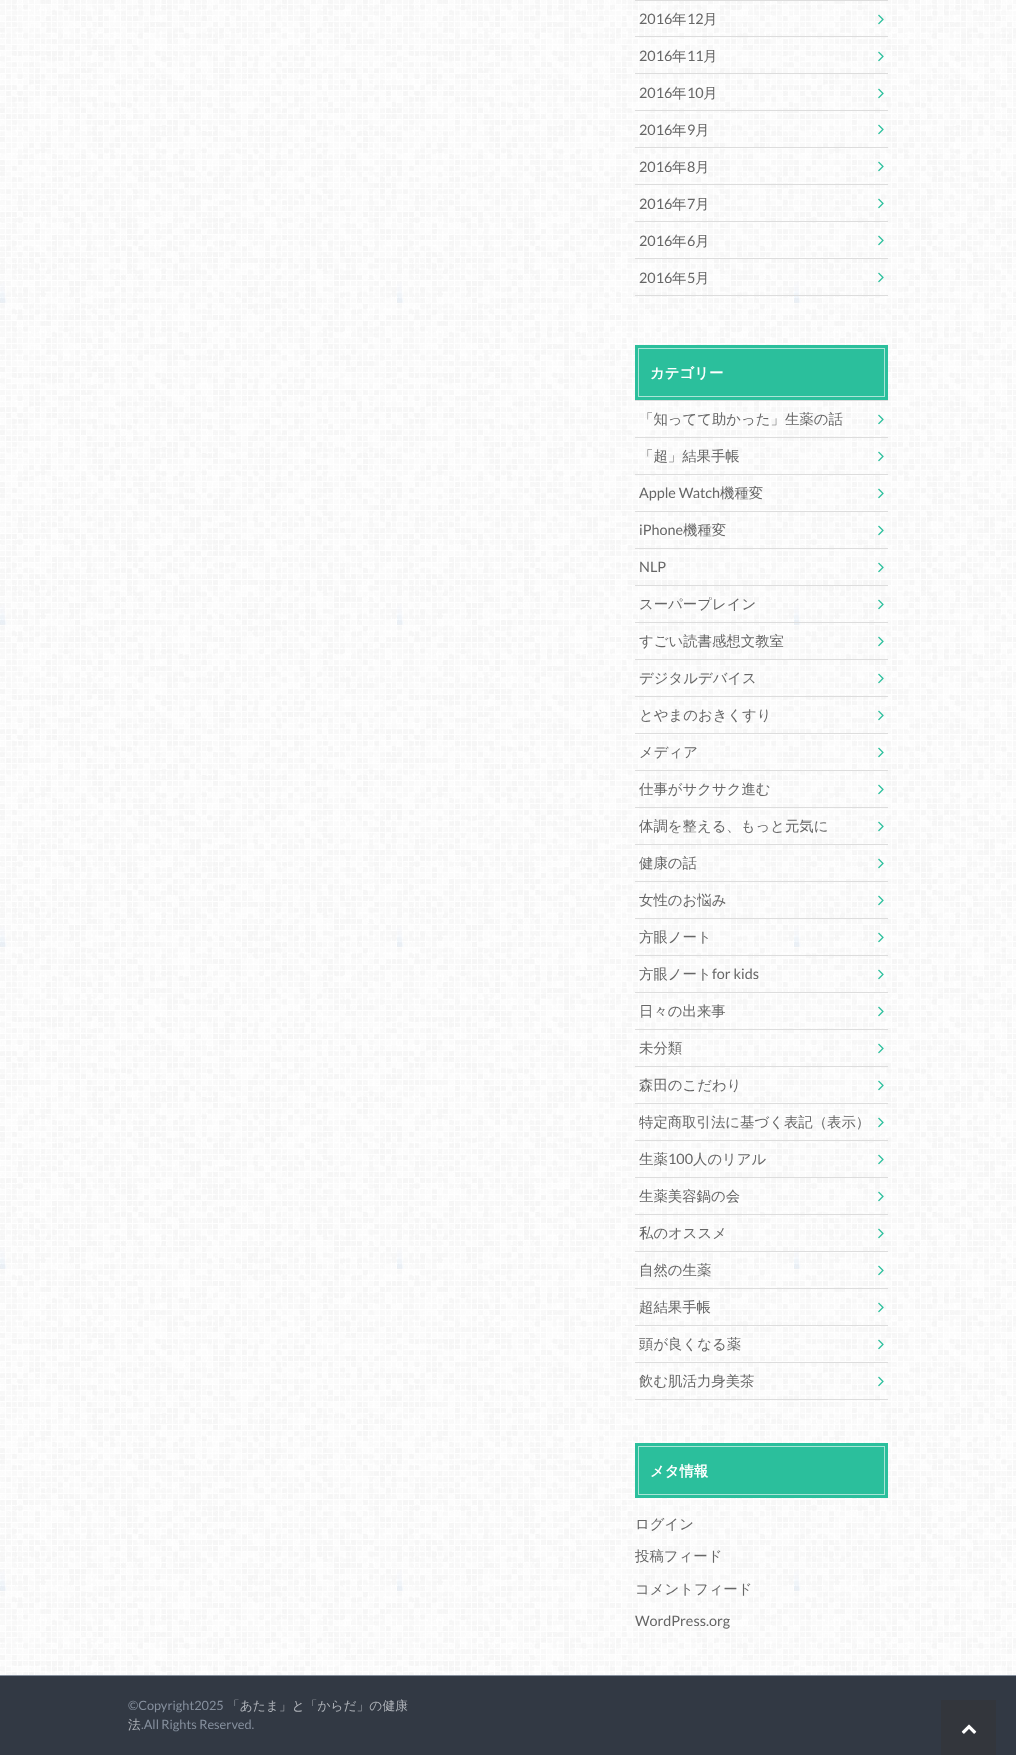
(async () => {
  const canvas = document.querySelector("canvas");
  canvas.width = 1016;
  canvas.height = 1755;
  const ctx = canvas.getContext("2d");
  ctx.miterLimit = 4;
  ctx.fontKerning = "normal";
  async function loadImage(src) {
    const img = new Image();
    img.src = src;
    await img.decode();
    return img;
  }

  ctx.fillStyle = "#ffffff";
  ctx.fillRect(0, 0, 1016, 1755);
  ctx.drawImage(await loadImage("img/1.png"), 0, 0, 1016, 1675);
  ctx.fillStyle = "#dddddd";
  ctx.fillRect(635, 0, 253, 1);
  ctx.fillRect(635, 36, 253, 1);
  ctx.drawImage(await loadImage("img/2.png"), 878, 14, 6, 11);
  ctx.fillRect(635, 73, 253, 1);
  ctx.drawImage(await loadImage("img/3.png"), 878, 51, 6, 11);
  ctx.fillRect(635, 110, 253, 1);
  ctx.drawImage(await loadImage("img/4.png"), 878, 88, 6, 11);
  ctx.fillRect(635, 147, 253, 1);
  ctx.drawImage(await loadImage("img/5.png"), 878, 124, 6, 11);
  ctx.fillRect(635, 184, 253, 1);
  ctx.drawImage(await loadImage("img/6.png"), 878, 161, 6, 11);
  ctx.fillRect(635, 221, 253, 1);
  ctx.drawImage(await loadImage("img/7.png"), 878, 198, 6, 11);
  ctx.fillRect(635, 258, 253, 1);
  ctx.drawImage(await loadImage("img/8.png"), 878, 235, 6, 11);
  ctx.fillRect(635, 295, 253, 1);
  ctx.drawImage(await loadImage("img/9.png"), 878, 272, 6, 11);
  ctx.fillStyle = "#2bbf9c";
  ctx.fillRect(635, 345, 253, 55);
  ctx.strokeStyle = "#aae5d7";
  ctx.strokeRect(638.5, 348.5, 246, 48);
  ctx.fillStyle = "#dddddd";
  ctx.fillRect(635, 400, 253, 1);
  ctx.fillRect(635, 437, 253, 1);
  ctx.drawImage(await loadImage("img/10.png"), 878, 414, 6, 11);
  ctx.fillRect(635, 474, 253, 1);
  ctx.drawImage(await loadImage("img/11.png"), 878, 451, 6, 11);
  ctx.fillRect(635, 511, 253, 1);
  ctx.drawImage(await loadImage("img/12.png"), 878, 488, 6, 11);
  ctx.fillRect(635, 548, 253, 1);
  ctx.drawImage(await loadImage("img/13.png"), 878, 525, 6, 11);
  ctx.fillRect(635, 585, 253, 1);
  ctx.drawImage(await loadImage("img/14.png"), 878, 562, 6, 11);
  ctx.fillRect(635, 622, 253, 1);
  ctx.drawImage(await loadImage("img/15.png"), 878, 599, 6, 11);
  ctx.fillRect(635, 659, 253, 1);
  ctx.drawImage(await loadImage("img/16.png"), 878, 636, 6, 11);
  ctx.fillRect(635, 696, 253, 1);
  ctx.drawImage(await loadImage("img/17.png"), 878, 673, 6, 11);
  ctx.fillRect(635, 733, 253, 1);
  ctx.drawImage(await loadImage("img/18.png"), 878, 710, 6, 11);
  ctx.fillRect(635, 770, 253, 1);
  ctx.drawImage(await loadImage("img/19.png"), 878, 747, 6, 11);
  ctx.fillRect(635, 807, 253, 1);
  ctx.drawImage(await loadImage("img/20.png"), 878, 784, 6, 11);
  ctx.fillRect(635, 844, 253, 1);
  ctx.drawImage(await loadImage("img/21.png"), 878, 821, 6, 11);
  ctx.fillRect(635, 881, 253, 1);
  ctx.drawImage(await loadImage("img/22.png"), 878, 858, 6, 11);
  ctx.fillRect(635, 918, 253, 1);
  ctx.drawImage(await loadImage("img/23.png"), 878, 895, 6, 11);
  ctx.fillRect(635, 955, 253, 1);
  ctx.drawImage(await loadImage("img/24.png"), 878, 932, 6, 11);
  ctx.fillRect(635, 992, 253, 1);
  ctx.drawImage(await loadImage("img/25.png"), 878, 969, 6, 11);
  ctx.fillRect(635, 1029, 253, 1);
  ctx.drawImage(await loadImage("img/26.png"), 878, 1006, 6, 11);
  ctx.fillRect(635, 1066, 253, 1);
  ctx.drawImage(await loadImage("img/27.png"), 878, 1043, 6, 11);
  ctx.fillRect(635, 1103, 253, 1);
  ctx.drawImage(await loadImage("img/28.png"), 878, 1080, 6, 11);
  ctx.fillRect(635, 1140, 253, 1);
  ctx.drawImage(await loadImage("img/29.png"), 878, 1117, 6, 11);
  ctx.fillRect(635, 1177, 253, 1);
  ctx.drawImage(await loadImage("img/30.png"), 878, 1154, 6, 11);
  ctx.fillRect(635, 1214, 253, 1);
  ctx.drawImage(await loadImage("img/31.png"), 878, 1191, 6, 11);
  ctx.fillRect(635, 1251, 253, 1);
  ctx.drawImage(await loadImage("img/32.png"), 878, 1228, 6, 11);
  ctx.fillRect(635, 1288, 253, 1);
  ctx.drawImage(await loadImage("img/33.png"), 878, 1265, 6, 11);
  ctx.fillRect(635, 1325, 253, 1);
  ctx.drawImage(await loadImage("img/2.png"), 878, 1302, 6, 11);
  ctx.fillRect(635, 1362, 253, 1);
  ctx.drawImage(await loadImage("img/3.png"), 878, 1339, 6, 11);
  ctx.fillRect(635, 1399, 253, 1);
  ctx.drawImage(await loadImage("img/4.png"), 878, 1376, 6, 11);
  ctx.fillStyle = "#2bbf9c";
  ctx.fillRect(635, 1443, 253, 55);
  ctx.strokeRect(638.5, 1446.5, 246, 48);
  for (const [x, y, w, h, color] of [
    [0, 1675, 1016, 1, "#86909e"],
    [0, 1676, 1016, 79, "#323944"],
    [941, 1700, 55, 55, "#33363c"],
  ]) {
    ctx.fillStyle = color;
    ctx.fillRect(x, y, w, h);
  }
  ctx.drawImage(await loadImage("img/34.png"), 961, 1724, 16, 10);
  ctx.font = "14.4px Lato";
  ctx.fillStyle = "#666666";
  ctx.fillText("2016", 639, 24);
  ctx.font = "500 14.4px WenQuanYi Zen Hei";
  ctx.fillText("年", 672, 24);
  ctx.font = "14.4px Lato";
  ctx.fillText("12", 687, 24);
  ctx.font = "500 14.4px WenQuanYi Zen Hei";
  ctx.fillText("月", 703, 24);
  ctx.font = "14.4px Lato";
  ctx.fillText("2016", 639, 61);
  ctx.font = "500 14.4px WenQuanYi Zen Hei";
  ctx.fillText("年", 672, 61);
  ctx.font = "14.4px Lato";
  ctx.fillText("11", 687, 61);
  ctx.font = "500 14.4px WenQuanYi Zen Hei";
  ctx.fillText("月", 703, 61);
  ctx.font = "14.4px Lato";
  ctx.fillText("2016", 639, 98);
  ctx.font = "500 14.4px WenQuanYi Zen Hei";
  ctx.fillText("年", 672, 98);
  ctx.font = "14.4px Lato";
  ctx.fillText("10", 687, 98);
  ctx.font = "500 14.4px WenQuanYi Zen Hei";
  ctx.fillText("月", 703, 98);
  ctx.font = "14.4px Lato";
  ctx.fillText("2016", 639, 135);
  ctx.font = "500 14.4px WenQuanYi Zen Hei";
  ctx.fillText("年", 672, 135);
  ctx.font = "14.4px Lato";
  ctx.fillText("9", 687, 135);
  ctx.font = "500 14.4px WenQuanYi Zen Hei";
  ctx.fillText("月", 695, 135);
  ctx.font = "14.4px Lato";
  ctx.fillText("2016", 639, 172);
  ctx.font = "500 14.4px WenQuanYi Zen Hei";
  ctx.fillText("年", 672, 172);
  ctx.font = "14.4px Lato";
  ctx.fillText("8", 687, 172);
  ctx.font = "500 14.4px WenQuanYi Zen Hei";
  ctx.fillText("月", 695, 172);
  ctx.font = "14.4px Lato";
  ctx.fillText("2016", 639, 209);
  ctx.font = "500 14.4px WenQuanYi Zen Hei";
  ctx.fillText("年", 672, 209);
  ctx.font = "14.4px Lato";
  ctx.fillText("7", 687, 209);
  ctx.font = "500 14.4px WenQuanYi Zen Hei";
  ctx.fillText("月", 695, 209);
  ctx.font = "14.4px Lato";
  ctx.fillText("2016", 639, 246);
  ctx.font = "500 14.4px WenQuanYi Zen Hei";
  ctx.fillText("年", 672, 246);
  ctx.font = "14.4px Lato";
  ctx.fillText("6", 687, 246);
  ctx.font = "500 14.4px WenQuanYi Zen Hei";
  ctx.fillText("月", 695, 246);
  ctx.font = "14.4px Lato";
  ctx.fillText("2016", 639, 283);
  ctx.font = "500 14.4px WenQuanYi Zen Hei";
  ctx.fillText("年", 672, 283);
  ctx.font = "14.4px Lato";
  ctx.fillText("5", 687, 283);
  ctx.font = "500 14.4px WenQuanYi Zen Hei";
  ctx.fillText("月", 695, 283);
  ctx.font = "bold 14.4px WenQuanYi Zen Hei";
  ctx.fillStyle = "#ffffff";
  ctx.fillText("カテゴリー", 650, 378);
  ctx.font = "500 14.4px WenQuanYi Zen Hei";
  ctx.fillStyle = "#666666";
  ctx.fillText("「知ってて助かった」生薬の話", 639, 424);
  ctx.fillText("「超」結果手帳", 639, 461);
  ctx.font = "14.4px Lato";
  ctx.fillText("Apple Watch", 639, 498);
  ctx.font = "500 14.4px WenQuanYi Zen Hei";
  ctx.fillText("機種変", 720, 498);
  ctx.font = "14.4px Lato";
  ctx.fillText("iPhone", 639, 535);
  ctx.font = "500 14.4px WenQuanYi Zen Hei";
  ctx.fillText("機種変", 683, 535);
  ctx.font = "14.4px Lato";
  ctx.fillText("NLP", 639, 572);
  ctx.font = "500 14.4px WenQuanYi Zen Hei";
  for (const [text, x, y] of [
    ["スーパープレイン", 639, 609],
    ["すごい読書感想文教室", 639, 646],
    ["デジタルデバイス", 639, 683],
    ["とやまのおきくすり", 639, 720],
    ["メディア", 639, 757],
    ["仕事がサクサク進む", 639, 794],
    ["体調を整える、もっと元気に", 639, 831],
    ["健康の話", 639, 868],
    ["女性のお悩み", 639, 905],
    ["方眼ノート", 639, 942],
    ["方眼ノート", 639, 979],
  ]) {
    ctx.fillText(text, x, y);
  }
  ctx.font = "14.4px Lato";
  ctx.fillText("for kids", 712, 979);
  ctx.font = "500 14.4px WenQuanYi Zen Hei";
  for (const [text, x, y] of [
    ["日々の出来事", 639, 1016],
    ["未分類", 639, 1053],
    ["森田のこだわり", 639, 1090],
    ["特定商取引法に基づく表記（表示）", 639, 1127],
    ["生薬", 639, 1164],
  ]) {
    ctx.fillText(text, x, y);
  }
  ctx.font = "14.4px Lato";
  ctx.fillText("100", 668, 1164);
  ctx.font = "500 14.4px WenQuanYi Zen Hei";
  for (const [text, x, y] of [
    ["人のリアル", 693, 1164],
    ["生薬美容鍋の会", 639, 1201],
    ["私のオススメ", 639, 1238],
    ["自然の生薬", 639, 1275],
    ["超結果手帳", 639, 1312],
    ["頭が良くなる薬", 639, 1349],
    ["飲む肌活力身美茶", 639, 1386],
  ]) {
    ctx.fillText(text, x, y);
  }
  ctx.font = "bold 14.4px WenQuanYi Zen Hei";
  ctx.fillStyle = "#ffffff";
  ctx.fillText("メタ情報", 650, 1476);
  ctx.font = "500 14.4px WenQuanYi Zen Hei";
  ctx.fillStyle = "#666666";
  for (const [text, x, y] of [
    ["ログイン", 635, 1529],
    ["投稿フィード", 635, 1561],
    ["コメントフィード", 635, 1594],
  ]) {
    ctx.fillText(text, x, y);
  }
  ctx.font = "14.4px Lato";
  ctx.fillText("WordPress.org", 635, 1626);
  ctx.font = "12.75px Lato";
  ctx.fillStyle = "#86909e";
  ctx.fillText("©Copyright2025", 128, 1710);
  ctx.font = "500 12.75px WenQuanYi Zen Hei";
  ctx.fillStyle = "#b0b4ba";
  ctx.fillText("「あたま」と「からだ」の健康", 227, 1710);
  ctx.fillText("法", 128, 1729);
  ctx.font = "12.75px Lato";
  ctx.fillStyle = "#86909e";
  ctx.fillText(".All Rights Reserved.", 141, 1729);
})();
